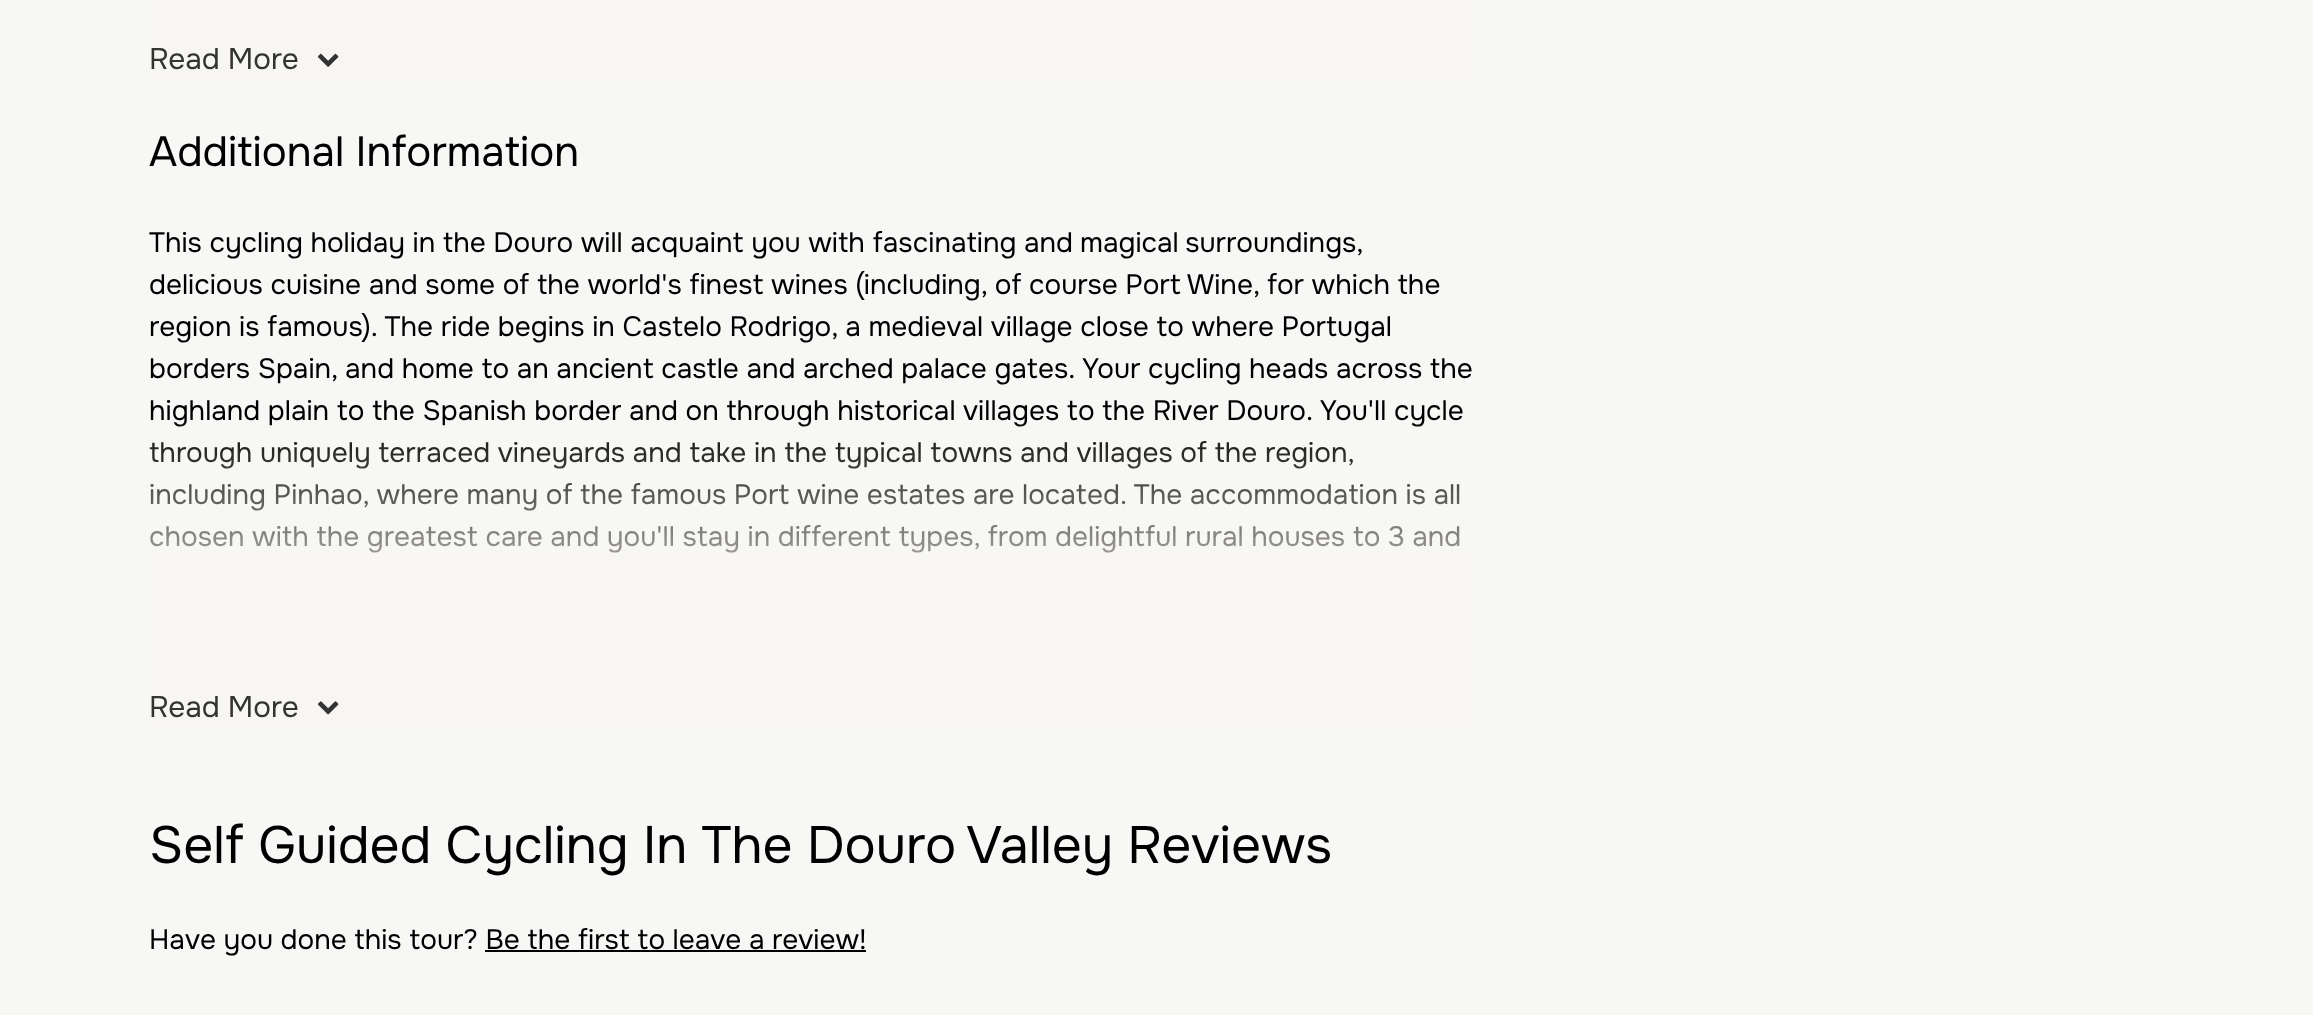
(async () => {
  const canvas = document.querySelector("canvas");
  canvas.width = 2313;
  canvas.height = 1015;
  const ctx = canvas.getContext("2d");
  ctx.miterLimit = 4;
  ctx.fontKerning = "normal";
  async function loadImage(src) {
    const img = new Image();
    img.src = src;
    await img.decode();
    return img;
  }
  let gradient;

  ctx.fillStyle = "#f7f8f5";
  ctx.fillRect(0, 0, 2313, 1015);
  gradient = ctx.createLinearGradient(811, -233, 811, 82);
  gradient.addColorStop(0, "rgba(248, 246, 242, 0)");
  gradient.addColorStop(0.71, "#f8f6f2");
  gradient.addColorStop(1, "#f8f6f2");
  ctx.fillStyle = gradient;
  ctx.fillRect(149, 0, 1325, 82);
  ctx.drawImage(await loadImage("img/1.png"), 317, 53, 22, 14);
  ctx.fillStyle = "#000000";
  ctx.fillRect(485, 950, 381, 2);
  ctx.font = "29.75px Onest";
  ctx.fillStyle = "#333333";
  ctx.fillText("Read More", 149, 69);
  ctx.font = "42px Onest";
  ctx.fillStyle = "#000000";
  ctx.fillText("Additional Information", 149, 166);
  ctx.font = "28px Onest";
  ctx.fillText("This cycling holiday in the Douro will acquaint you with fascinating and", 149, 252);
  ctx.wordSpacing = "-1px";
  ctx.fillText("magical surroundings,", 1080, 252);
  ctx.wordSpacing = "0px";
  for (const [text, x, y] of [
    ["delicious cuisine and some of the world's finest wines (including, of course Port Wine, for which the", 149, 294],
    ["region is famous). The ride begins in Castelo Rodrigo, a medieval village close to where Portugal", 149, 336],
    ["borders Spain, and home to an ancient castle and arched palace gates. Your cycling heads across the", 149, 378],
    ["highland plain to the Spanish border and on through historical villages to the River Douro. You'll cycle", 149, 420],
    ["through uniquely terraced vineyards and take in the typical towns and villages of the region,", 149, 462],
    ["including Pinhao, where many of the famous Port wine estates are located. The accommodation is all", 149, 504],
    ["chosen with the greatest care and you'll stay in different types, from delightful rural houses to 3 and", 149, 546],
  ]) {
    ctx.fillText(text, x, y);
  }
  gradient = ctx.createLinearGradient(811, 415, 811, 730);
  gradient.addColorStop(0, "rgba(248, 246, 242, 0)");
  gradient.addColorStop(0.71, "#f8f6f2");
  gradient.addColorStop(1, "#f8f6f2");
  ctx.fillStyle = gradient;
  ctx.fillRect(149, 420, 1325, 310);
  ctx.font = "29.75px Onest";
  ctx.fillStyle = "#333333";
  ctx.fillText("Read More", 149, 717);
  ctx.drawImage(await loadImage("img/2.png"), 317, 701, 22, 14);
  ctx.font = "52.5px Onest";
  ctx.fillStyle = "#000000";
  ctx.fillText("Self Guided Cycling In The Douro Valley Reviews", 149, 863);
  ctx.font = "28px Onest";
  ctx.fillText("Have you done this tour? Be the first to leave a review!", 149, 949);
})();
